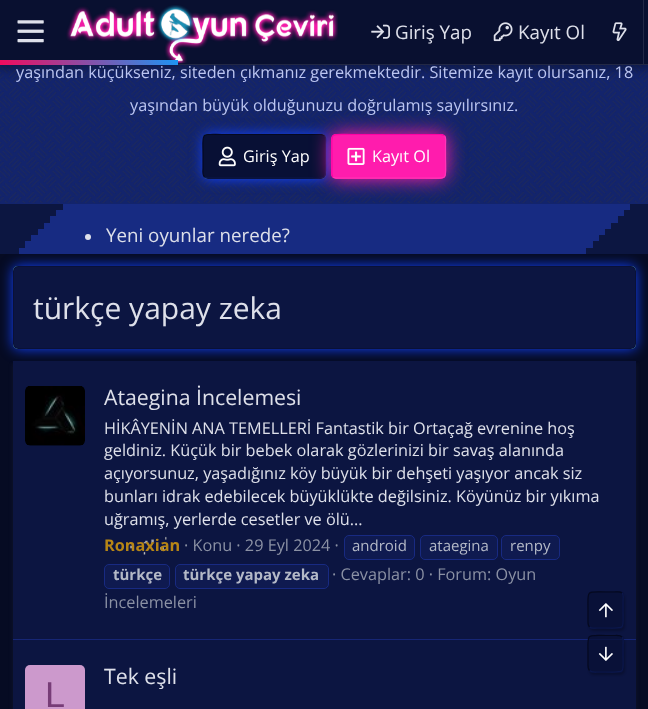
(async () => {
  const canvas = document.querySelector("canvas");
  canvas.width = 648;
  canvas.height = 709;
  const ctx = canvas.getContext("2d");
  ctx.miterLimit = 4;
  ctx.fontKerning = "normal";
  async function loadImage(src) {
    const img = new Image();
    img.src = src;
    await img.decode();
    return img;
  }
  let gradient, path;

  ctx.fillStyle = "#060b23";
  ctx.fillRect(0, 0, 648, 709);
  ctx.fillStyle = "#13246c";
  ctx.fillRect(0, 65, 648, 139);
  ctx.drawImage(await loadImage("img/6.png"), 0, 65, 648, 138);
  ctx.fillStyle = "rgba(0, 0, 0, 0.3)";
  ctx.filter = "blur(5px)";
  ctx.beginPath();
  ctx.rect(-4, -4, 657, 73);
  ctx.fill();
  ctx.filter = "none";
  ctx.fillStyle = "#091030";
  ctx.fillRect(0, 0, 648, 64);
  ctx.fillStyle = "#222845";
  ctx.fillRect(178, 64, 470, 1);
  ctx.drawImage(await loadImage("img/1.png"), 17, 20, 27, 23);
  ctx.drawImage(await loadImage("img/2.png"), 66, 5, 272, 59);
  ctx.drawImage(await loadImage("img/3.png"), 371, 24, 19, 15);
  ctx.drawImage(await loadImage("img/4.png"), 493, 22, 20, 20);
  ctx.fillRect(643, 0, 1, 64);
  ctx.drawImage(await loadImage("img/5.png"), 612, 22, 15, 20);
  gradient = ctx.createLinearGradient(43, 108, 134, 17);
  gradient.addColorStop(0, "#f30a5c");
  gradient.addColorStop(1, "#1c95f3");
  ctx.fillStyle = gradient;
  ctx.fillRect(0, 60, 178, 5);
  ctx.fillStyle = "#8bfdfe";
  ctx.filter = "blur(0.5px)";
  ctx.beginPath();
  ctx.roundRect(203, 134, 123, 45, 5);
  ctx.fill();
  ctx.filter = "none";
  ctx.fillStyle = "#1041ff";
  ctx.filter = "blur(6.5px)";
  ctx.beginPath();
  ctx.roundRect(203, 134, 123, 45, 5);
  ctx.fill();
  ctx.filter = "none";
  ctx.fillStyle = "#081035";
  ctx.beginPath();
  ctx.roundRect(203, 134, 123, 45, 5);
  ctx.fill();
  path = new Path2D("M324.5 135.5C326.5 138 325.5 142 325.5 144.5V156C325.5 182.5 329.5 178 302.5 178H207.5L204.5 177");
  ctx.strokeStyle = "#0b174b";
  ctx.lineWidth = 1.2;
  ctx.stroke(path);
  path = new Path2D("M204.5 177C202 174.5 203 170.5 203 168V156C203 130 199 134.5 226.5 134.5H321L324.5 135.5");
  ctx.strokeStyle = "#05091f";
  ctx.stroke(path);
  ctx.drawImage(await loadImage("img/7.png"), 218, 146, 18, 21);
  ctx.fillStyle = "#fe1dad";
  ctx.filter = "blur(9.5px)";
  ctx.beginPath();
  ctx.roundRect(331, 134, 115, 45, 5);
  ctx.fill();
  ctx.filter = "none";
  ctx.fillStyle = "#ff1cad";
  ctx.beginPath();
  ctx.roundRect(331, 134, 115, 45, 5);
  ctx.fill();
  path = new Path2D("M444.5 135.5C446.5 138 445.5 142 445.5 144.5V156C445.5 182 450 178 424 178H336L333 177");
  ctx.strokeStyle = "#ff36b6";
  ctx.stroke(path);
  path = new Path2D("M333 177C331 174.5 332 170.5 332 168V156C332 130.5 327.5 134.5 354 134.5H441L444.5 135.5");
  ctx.strokeStyle = "#ff02a4";
  ctx.stroke(path);
  ctx.drawImage(await loadImage("img/8.png"), 347, 147, 18, 18);
  ctx.fillStyle = "#1041ff";
  ctx.filter = "blur(6.5px)";
  ctx.beginPath();
  ctx.roundRect(13, 266, 623, 83, 5);
  ctx.fill();
  ctx.filter = "none";
  for (const [x, y, w, h, color] of [
    [19, 204, 611, 50, "#172b82"],
    [0, 204, 63, 6, "#0c1641"],
    [0, 210, 56, 6, "#0c1641"],
    [0, 216, 50, 7, "#0c1641"],
    [0, 223, 44, 6, "#0c1641"],
    [0, 229, 38, 6, "#0c1641"],
    [0, 235, 31, 6, "#0c1641"],
    [0, 241, 25, 7, "#0c1641"],
    [0, 248, 19, 6, "#0c1641"],
  ]) {
    ctx.fillStyle = color;
    ctx.fillRect(x, y, w, h);
  }
  ctx.fillStyle = "#dee0ea";
  ctx.beginPath();
  ctx.arc(88, 237, 3, 0, Math.PI * 2);
  ctx.fill();
  for (const [x, y, w, h, color] of [
    [630, 204, 18, 6, "#0c1641"],
    [624, 210, 24, 6, "#0c1641"],
    [618, 216, 30, 7, "#0c1641"],
    [611, 223, 37, 6, "#0c1641"],
    [605, 229, 43, 6, "#0c1641"],
    [599, 235, 49, 6, "#0c1641"],
    [593, 241, 55, 7, "#0c1641"],
    [586, 248, 62, 6, "#0c1641"],
  ]) {
    ctx.fillStyle = color;
    ctx.fillRect(x, y, w, h);
  }
  ctx.fillStyle = "#8bfdfe";
  ctx.filter = "blur(0.5px)";
  ctx.beginPath();
  ctx.roundRect(13, 266, 623, 83, 5);
  ctx.fill();
  ctx.filter = "none";
  ctx.fillStyle = "#0c1541";
  ctx.beginPath();
  ctx.roundRect(13, 266, 623, 83, 5);
  ctx.fill();
  ctx.beginPath();
  ctx.roundRect(13.5, 266.5, 622, 82, 4.5);
  ctx.strokeStyle = "rgba(0, 0, 0, 0.15)";
  ctx.lineWidth = 1;
  ctx.stroke();
  ctx.fillStyle = "rgba(108, 111, 115, 0.1)";
  ctx.filter = "blur(2.5px)";
  ctx.beginPath();
  ctx.rect(13, 364, 623, 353);
  ctx.fill();
  ctx.filter = "none";
  ctx.fillStyle = "#0c1541";
  ctx.fillRect(13, 361, 623, 348);
  ctx.drawImage(await loadImage("img/9.png"), 25, 386, 60, 60);
  ctx.drawImage(await loadImage("img/10.png"), 129, 536, 38, 19);
  ctx.fillStyle = "#0f1a50";
  ctx.beginPath();
  ctx.roundRect(344.5, 535.5, 70, 24, 4.5);
  ctx.fill();
  ctx.strokeStyle = "#182a82";
  ctx.stroke();
  ctx.beginPath();
  ctx.roundRect(420.5, 535.5, 77, 24, 4.5);
  ctx.fill();
  ctx.stroke();
  ctx.beginPath();
  ctx.roundRect(501.5, 535.5, 58, 24, 4.5);
  ctx.fill();
  ctx.stroke();
  ctx.beginPath();
  ctx.roundRect(104.5, 564.5, 65, 24, 4.5);
  ctx.fill();
  ctx.stroke();
  ctx.beginPath();
  ctx.roundRect(175.5, 564.5, 153, 24, 4.5);
  ctx.fill();
  ctx.stroke();
  ctx.fillStyle = "#162675";
  ctx.fillRect(13, 639, 623, 1);
  ctx.fillStyle = "#cc99cc";
  ctx.beginPath();
  ctx.roundRect(25, 665, 60, 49, 5);
  ctx.fill();
  ctx.save();
  path = new Path2D("M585 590H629V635H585ZM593 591H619C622 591 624 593 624 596V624C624 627 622 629 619 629H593C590 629 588 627 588 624V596C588 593 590 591 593 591Z");
  ctx.clip(path, "evenodd");
  ctx.fillStyle = "rgba(0, 0, 0, 0.25)";
  ctx.filter = "blur(1px)";
  ctx.beginPath();
  ctx.roundRect(589, 594, 36, 37, 5);
  ctx.fill();
  ctx.filter = "none";
  ctx.restore();
  ctx.fillStyle = "rgba(8, 16, 53, 0.75)";
  ctx.beginPath();
  ctx.roundRect(588, 591, 36, 38, 5);
  ctx.fill();
  path = new Path2D("M622 593C624 595 623 598.5 623 601V610C623 630.5 626 628 605.5 628H597C594.5 628 591.5 629 589.5 627");
  ctx.strokeStyle = "#0b174b";
  ctx.lineWidth = 1.2;
  ctx.stroke(path);
  path = new Path2D("M589.5 627C587.5 625 588 621.5 588 619V610C588 589.5 585.5 592 605.5 592H614.5C616.5 592 620 591 622 593");
  ctx.strokeStyle = "#05091f";
  ctx.stroke(path);
  ctx.drawImage(await loadImage("img/11.png"), 598, 603, 15, 15);
  ctx.save();
  path = new Path2D("M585 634H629V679H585ZM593 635H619C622 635 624 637 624 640V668C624 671 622 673 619 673H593C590 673 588 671 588 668V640C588 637 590 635 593 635Z");
  ctx.clip(path, "evenodd");
  ctx.fillStyle = "rgba(0, 0, 0, 0.25)";
  ctx.filter = "blur(1px)";
  ctx.beginPath();
  ctx.roundRect(589, 638, 36, 37, 5);
  ctx.fill();
  ctx.filter = "none";
  ctx.restore();
  ctx.beginPath();
  ctx.roundRect(588, 635, 36, 38, 5);
  ctx.fill();
  path = new Path2D("M622 637C624 639 623 642 623 644.5V654C623 674.5 626 672 605.5 672H597C594.5 672 591.5 672.5 589.5 670.5");
  ctx.strokeStyle = "#0b174b";
  ctx.stroke(path);
  path = new Path2D("M589.5 670.5C587.5 668.5 588 665.5 588 663V654C588 633 585.5 635.5 605.5 635.5H614.5C616.5 635.5 620 635 622 637");
  ctx.strokeStyle = "#05091f";
  ctx.stroke(path);
  ctx.drawImage(await loadImage("img/12.png"), 598, 646, 15, 15);
  ctx.font = "18.75px Open Sans";
  ctx.fillStyle = "#dee0ea";
  ctx.fillText("Giriş Yap", 395, 39);
  ctx.fillText("Kayıt Ol", 518, 39);
  ctx.font = "16.25px Open Sans";
  ctx.fillStyle = "#bbc5f1";
  ctx.fillText("yaşından küçükseniz, siteden çıkmanız gerekmektedir. Sitemize kayıt olursanız, 18", 16, 78);
  ctx.fillText("yaşından büyük olduğunuzu doğrulamış sayılırsınız.", 130, 111);
  ctx.fillStyle = "#ffffff";
  ctx.fillText("Giriş Yap", 243, 162);
  ctx.fillText("Kayıt Ol", 372, 162);
  ctx.font = "18.75px Open Sans";
  ctx.fillStyle = "#dee0ea";
  ctx.fillText("Yeni oyunlar nerede?", 106, 242);
  ctx.font = "30px Open Sans";
  ctx.fillText("türkçe yapay zeka", 33, 319);
  ctx.font = "21.25px Open Sans";
  ctx.fillText("Ataegina İncelemesi", 104, 405);
  ctx.font = "16.25px Open Sans";
  for (const [text, x, y] of [
    ["HİKÂYENİN ANA TEMELLERİ Fantastik bir Ortaçağ evrenine hoş", 104, 434],
    ["geldiniz. Küçük bir bebek olarak gözlerinizi bir savaş alanında", 104, 456],
    ["açıyorsunuz, yaşadığınız köy büyük bir dehşeti yaşıyor ancak siz", 104, 479],
    ["bunları idrak edebilecek büyüklükte değilsiniz. Köyünüz bir yıkıma", 104, 502],
    ["uğramış, yerlerde cesetler ve ölü...", 104, 525],
  ]) {
    ctx.fillText(text, x, y);
  }
  ctx.font = "bold 16.25px Open Sans";
  ctx.fillStyle = "#b78616";
  ctx.fillText("Ronaxian", 104, 551);
  ctx.font = "16.25px Open Sans";
  ctx.fillStyle = "#8b91a4";
  ctx.fillText("· Konu · 29 Eyl 2024 ·", 184, 551);
  ctx.font = "15px Open Sans";
  ctx.fillStyle = "#b4b9c7";
  for (const [text, x, y] of [
    ["android", 352, 551],
    ["ataegina", 429, 551],
    ["renpy", 510, 551],
  ]) {
    ctx.fillText(text, x, y);
  }
  ctx.font = "bold 15px Open Sans";
  ctx.fillText("türkçe", 113, 580);
  ctx.fillText("türkçe yapay zeka", 183, 580);
  ctx.font = "16.25px Open Sans";
  ctx.fillStyle = "#8b91a4";
  ctx.fillText("· Cevaplar: 0 · Forum: Oyun", 332, 580);
  ctx.fillText("İncelemeleri", 104, 608);
  ctx.font = "21.25px Open Sans";
  ctx.fillStyle = "#dee0ea";
  ctx.fillText("Tek eşli", 104, 684);
  ctx.font = "36px Liberation Sans";
  ctx.fillStyle = "#773c77";
  ctx.fillText("L", 45, 707);
})();
